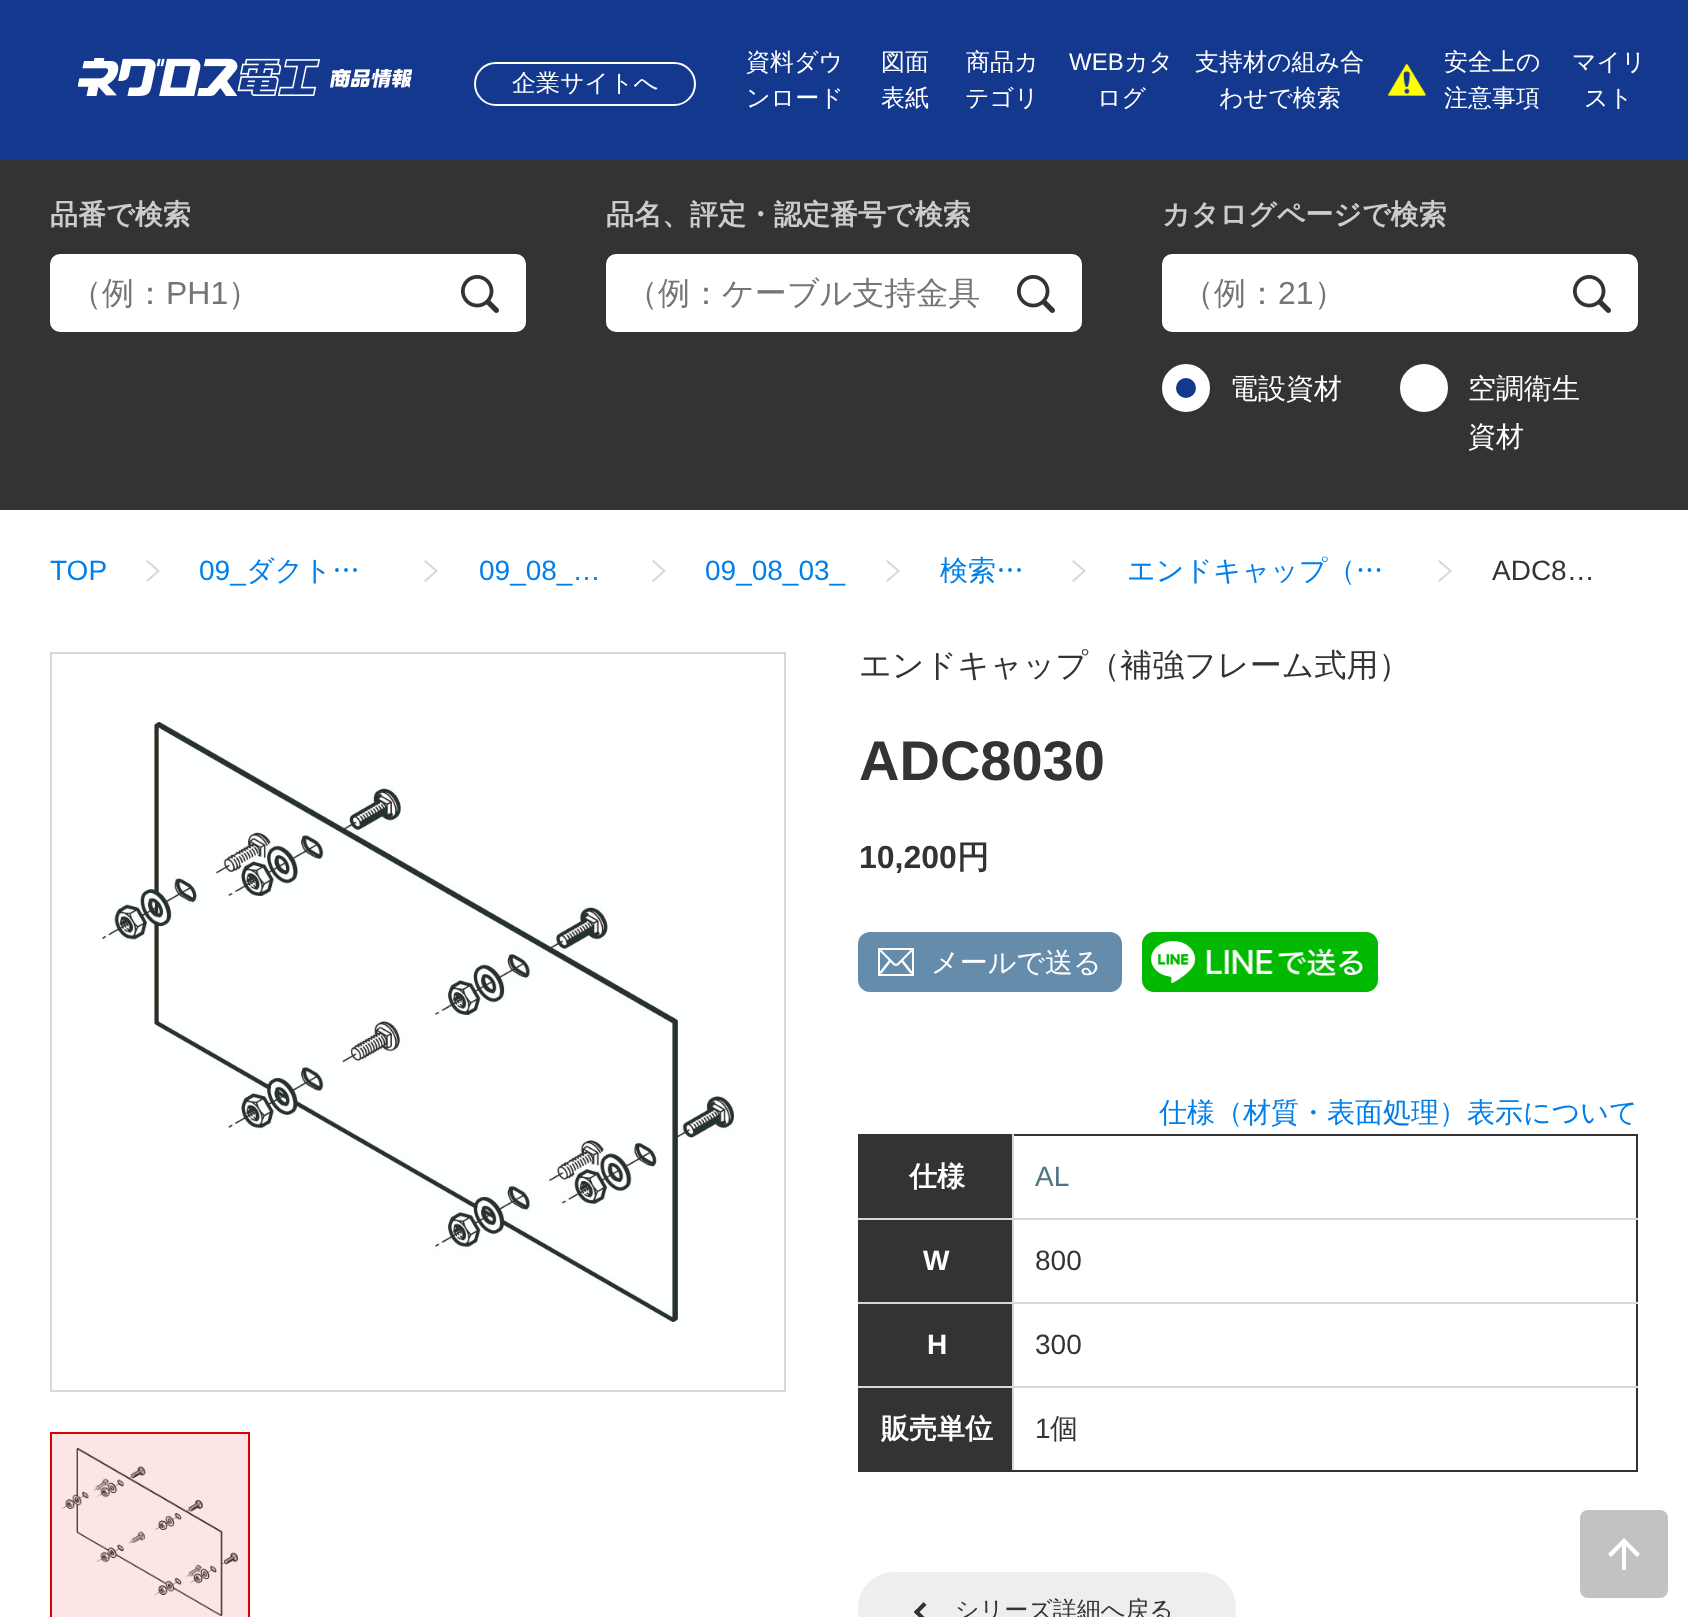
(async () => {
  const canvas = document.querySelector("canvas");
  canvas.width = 1688;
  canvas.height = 1617;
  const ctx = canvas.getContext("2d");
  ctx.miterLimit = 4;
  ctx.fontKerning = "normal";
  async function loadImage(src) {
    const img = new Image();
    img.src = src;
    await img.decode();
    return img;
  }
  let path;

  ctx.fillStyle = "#ffffff";
  ctx.fillRect(0, 0, 1688, 1617);
  ctx.fillStyle = "#13388d";
  ctx.fillRect(0, 0, 1688, 160);
  ctx.drawImage(await loadImage("img/1.png"), 78, 58, 334, 38);
  ctx.beginPath();
  ctx.roundRect(475, 63, 220, 42, 21);
  ctx.strokeStyle = "#ffffff";
  ctx.lineWidth = 2;
  ctx.stroke();
  ctx.drawImage(await loadImage("img/2.png"), 1388, 64, 38, 32);
  ctx.fillStyle = "#333333";
  ctx.fillRect(0, 160, 1688, 350);
  ctx.fillStyle = "#ffffff";
  ctx.beginPath();
  ctx.roundRect(50, 254, 476, 78, 10);
  ctx.fill();
  ctx.drawImage(await loadImage("img/3.png"), 461, 275, 38, 38);
  ctx.beginPath();
  ctx.roundRect(606, 254, 476, 78, 10);
  ctx.fill();
  ctx.drawImage(await loadImage("img/3.png"), 1017, 275, 38, 38);
  ctx.beginPath();
  ctx.roundRect(1162, 254, 476, 78, 10);
  ctx.fill();
  ctx.drawImage(await loadImage("img/3.png"), 1573, 275, 38, 38);
  ctx.fillStyle = "#13388d";
  ctx.beginPath();
  ctx.arc(1186, 388, 17, 0, Math.PI * 2);
  ctx.fill();
  ctx.lineWidth = 14;
  ctx.stroke();
  ctx.fillStyle = "#ffffff";
  ctx.beginPath();
  ctx.arc(1424, 388, 17, 0, Math.PI * 2);
  ctx.fill();
  ctx.stroke();
  ctx.fillStyle = "#d8d8d8";
  path = new Path2D("M147.5 582L160 571L147.5 560L146 561.5L157 571L146 580.5Z");
  ctx.fill(path);
  path = new Path2D("M425.5 582L438 571L425.5 560L424 561.5L435 571L424 580.5Z");
  ctx.fill(path);
  path = new Path2D("M653.5 582L666 571L653.5 560L652 561.5L663 571L652 580.5Z");
  ctx.fill(path);
  path = new Path2D("M887.5 582L900 571L887.5 560L886 561.5L897 571L886 580.5Z");
  ctx.fill(path);
  path = new Path2D("M1073.5 582L1086 571L1073.5 560L1072 561.5L1083 571L1072 580.5Z");
  ctx.fill(path);
  path = new Path2D("M1439.5 582L1452 571L1439.5 560L1438 561.5L1449 571L1438 580.5Z");
  ctx.fill(path);
  ctx.strokeStyle = "#d8d8d8";
  ctx.lineWidth = 2;
  ctx.strokeRect(51, 653, 734, 738);
  ctx.drawImage(await loadImage("img/4.png"), 102, 722, 632, 600);
  ctx.fillStyle = "#ffe6e6";
  ctx.beginPath();
  ctx.rect(51, 1433, 198, 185);
  ctx.fill();
  ctx.strokeStyle = "#de0000";
  ctx.stroke();
  ctx.drawImage(await loadImage("img/5.png"), 62, 1448, 176, 168);
  ctx.fillStyle = "#668cac";
  ctx.beginPath();
  ctx.roundRect(858, 932, 264, 60, 12);
  ctx.fill();
  ctx.drawImage(await loadImage("img/6.png"), 878, 948, 36, 28);
  ctx.drawImage(await loadImage("img/7.png"), 1142, 932, 236, 60);
  for (const [x, y, w, h, color] of [
    [858, 1134, 780, 2, "#333333"],
    [858, 1134, 2, 338, "#333333"],
    [860, 1136, 152, 82, "#333333"],
    [1636, 1134, 2, 338, "#333333"],
    [1012, 1470, 626, 2, "#333333"],
    [1012, 1386, 2, 86, "#d8d8d8"],
    [1012, 1386, 626, 2, "#d8d8d8"],
    [1012, 1302, 2, 86, "#d8d8d8"],
    [1012, 1302, 626, 2, "#d8d8d8"],
    [1012, 1218, 2, 86, "#d8d8d8"],
    [1012, 1218, 626, 2, "#d8d8d8"],
    [1012, 1134, 2, 86, "#d8d8d8"],
    [858, 1218, 156, 2, "#d8d8d8"],
    [860, 1220, 152, 82, "#333333"],
    [858, 1302, 156, 2, "#d8d8d8"],
    [860, 1304, 152, 82, "#333333"],
    [858, 1386, 156, 2, "#d8d8d8"],
    [860, 1388, 152, 82, "#333333"],
    [858, 1470, 156, 2, "#333333"],
  ]) {
    ctx.fillStyle = color;
    ctx.fillRect(x, y, w, h);
  }
  ctx.fillStyle = "#eeeeee";
  ctx.beginPath();
  ctx.roundRect(859, 1573, 376, 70, 35);
  ctx.fill();
  ctx.strokeStyle = "#eeeeee";
  ctx.stroke();
  ctx.fillStyle = "#333333";
  path = new Path2D("M926.5 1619L923.5 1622L914 1612L916.5 1609Z");
  ctx.fill(path);
  path = new Path2D("M926.5 1605L916.5 1615L914 1612L923.5 1602Z");
  ctx.fill(path);
  ctx.fillStyle = "#c2c2c2";
  ctx.beginPath();
  ctx.roundRect(1580, 1510, 88, 88, 8);
  ctx.fill();
  ctx.fillStyle = "#ffffff";
  path = new Path2D("M1608 1554L1611 1557L1622 1546V1570H1626V1546L1637 1557L1640 1554L1624 1538Z");
  ctx.fill(path);
  ctx.font = "500 24px WenQuanYi Zen Hei";
  for (const [text, x, y] of [
    ["企業サイトへ", 512, 91],
    ["資料ダウ", 746, 70],
    ["ンロード", 746, 106],
    ["図面", 881, 70],
    ["表紙", 881, 106],
    ["商品カ", 966, 70],
    ["テゴリ", 965, 106],
  ]) {
    ctx.fillText(text, x, y);
  }
  ctx.font = "24px Liberation Sans";
  ctx.fillText("WEB", 1069, 70);
  ctx.font = "500 24px WenQuanYi Zen Hei";
  for (const [text, x, y] of [
    ["カタ", 1124, 70],
    ["ログ", 1097, 106],
    ["支持材の組み合", 1195, 70],
    ["わせで検索", 1219, 106],
    ["安全上の", 1444, 70],
    ["注意事項", 1444, 106],
    ["マイリ", 1572, 70],
    ["スト", 1584, 106],
  ]) {
    ctx.fillText(text, x, y);
  }
  ctx.font = "bold 28px WenQuanYi Zen Hei";
  ctx.fillStyle = "#cccccc";
  ctx.fillText("品番で検索", 50, 224);
  ctx.font = "500 32px WenQuanYi Zen Hei";
  ctx.fillStyle = "#757575";
  ctx.fillText("（例：", 70, 304);
  ctx.font = "32px Liberation Sans";
  ctx.fillText("PH1", 166, 304);
  ctx.font = "500 32px WenQuanYi Zen Hei";
  ctx.fillText("）", 228, 304);
  ctx.font = "bold 28px WenQuanYi Zen Hei";
  ctx.fillStyle = "#cccccc";
  ctx.fillText("品名、評定・認定番号で検索", 606, 224);
  ctx.font = "500 32px WenQuanYi Zen Hei";
  ctx.fillStyle = "#757575";
  ctx.fillText("（例：ケーブル支持金具", 626, 304);
  ctx.font = "bold 28px WenQuanYi Zen Hei";
  ctx.fillStyle = "#cccccc";
  ctx.fillText("カタログページで検索", 1162, 224);
  ctx.font = "500 32px WenQuanYi Zen Hei";
  ctx.fillStyle = "#757575";
  ctx.fillText("（例：", 1182, 304);
  ctx.font = "32px Liberation Sans";
  ctx.fillText("21", 1278, 304);
  ctx.font = "500 32px WenQuanYi Zen Hei";
  ctx.fillText("）", 1314, 304);
  ctx.font = "500 28px WenQuanYi Zen Hei";
  ctx.fillStyle = "#ffffff";
  for (const [text, x, y] of [
    ["電設資材", 1230, 398],
    ["空調衛生", 1468, 398],
    ["資材", 1468, 446],
  ]) {
    ctx.fillText(text, x, y);
  }
  ctx.font = "28px Liberation Sans";
  ctx.fillStyle = "#007feb";
  ctx.fillText("TOP", 50, 580);
  ctx.fillText("09_", 199, 580);
  ctx.font = "500 28px WenQuanYi Zen Hei";
  ctx.fillText("ダクト…", 246, 580);
  ctx.font = "28px Liberation Sans";
  ctx.fillText("09_08_…", 479, 580);
  ctx.fillText("09_08_03_", 705, 580);
  ctx.font = "500 28px WenQuanYi Zen Hei";
  ctx.fillText("検索…", 940, 580);
  ctx.fillText("エンドキャップ（…", 1127, 580);
  ctx.font = "28px Liberation Sans";
  ctx.fillStyle = "#333333";
  ctx.fillText("ADC8…", 1492, 580);
  ctx.font = "500 32px WenQuanYi Zen Hei";
  ctx.fillText("エンドキャップ（補強フレーム式用）", 859, 676);
  ctx.font = "bold 56px Liberation Sans";
  ctx.fillText("ADC8030", 859, 780);
  ctx.font = "bold 32px Liberation Sans";
  ctx.fillText("10,200", 859, 868);
  ctx.font = "bold 32px WenQuanYi Zen Hei";
  ctx.fillText("円", 957, 868);
  ctx.font = "500 28px WenQuanYi Zen Hei";
  ctx.fillStyle = "#ffffff";
  ctx.fillText("メールで送る", 931, 972);
  ctx.fillStyle = "#007feb";
  ctx.fillText("仕様（材質・表面処理）表示について", 1159, 1122);
  ctx.font = "bold 28px WenQuanYi Zen Hei";
  ctx.fillStyle = "#ffffff";
  ctx.fillText("仕様", 909, 1186);
  ctx.font = "28px Liberation Sans";
  ctx.fillStyle = "#4b7583";
  ctx.fillText("AL", 1035, 1186);
  ctx.font = "bold 28px Liberation Sans";
  ctx.fillStyle = "#ffffff";
  ctx.fillText("W", 923, 1270);
  ctx.font = "28px Liberation Sans";
  ctx.fillStyle = "#333333";
  ctx.fillText("800", 1035, 1270);
  ctx.font = "bold 28px Liberation Sans";
  ctx.fillStyle = "#ffffff";
  ctx.fillText("H", 927, 1354);
  ctx.font = "28px Liberation Sans";
  ctx.fillStyle = "#333333";
  ctx.fillText("300", 1035, 1354);
  ctx.font = "bold 28px WenQuanYi Zen Hei";
  ctx.fillStyle = "#ffffff";
  ctx.fillText("販売単位", 881, 1438);
  ctx.font = "28px Liberation Sans";
  ctx.fillStyle = "#333333";
  ctx.fillText("1", 1035, 1438);
  ctx.font = "500 28px WenQuanYi Zen Hei";
  ctx.fillText("個", 1050, 1438);
  ctx.font = "500 24px WenQuanYi Zen Hei";
  ctx.fillText("シリーズ詳細へ戻る", 955, 1618);
})();
